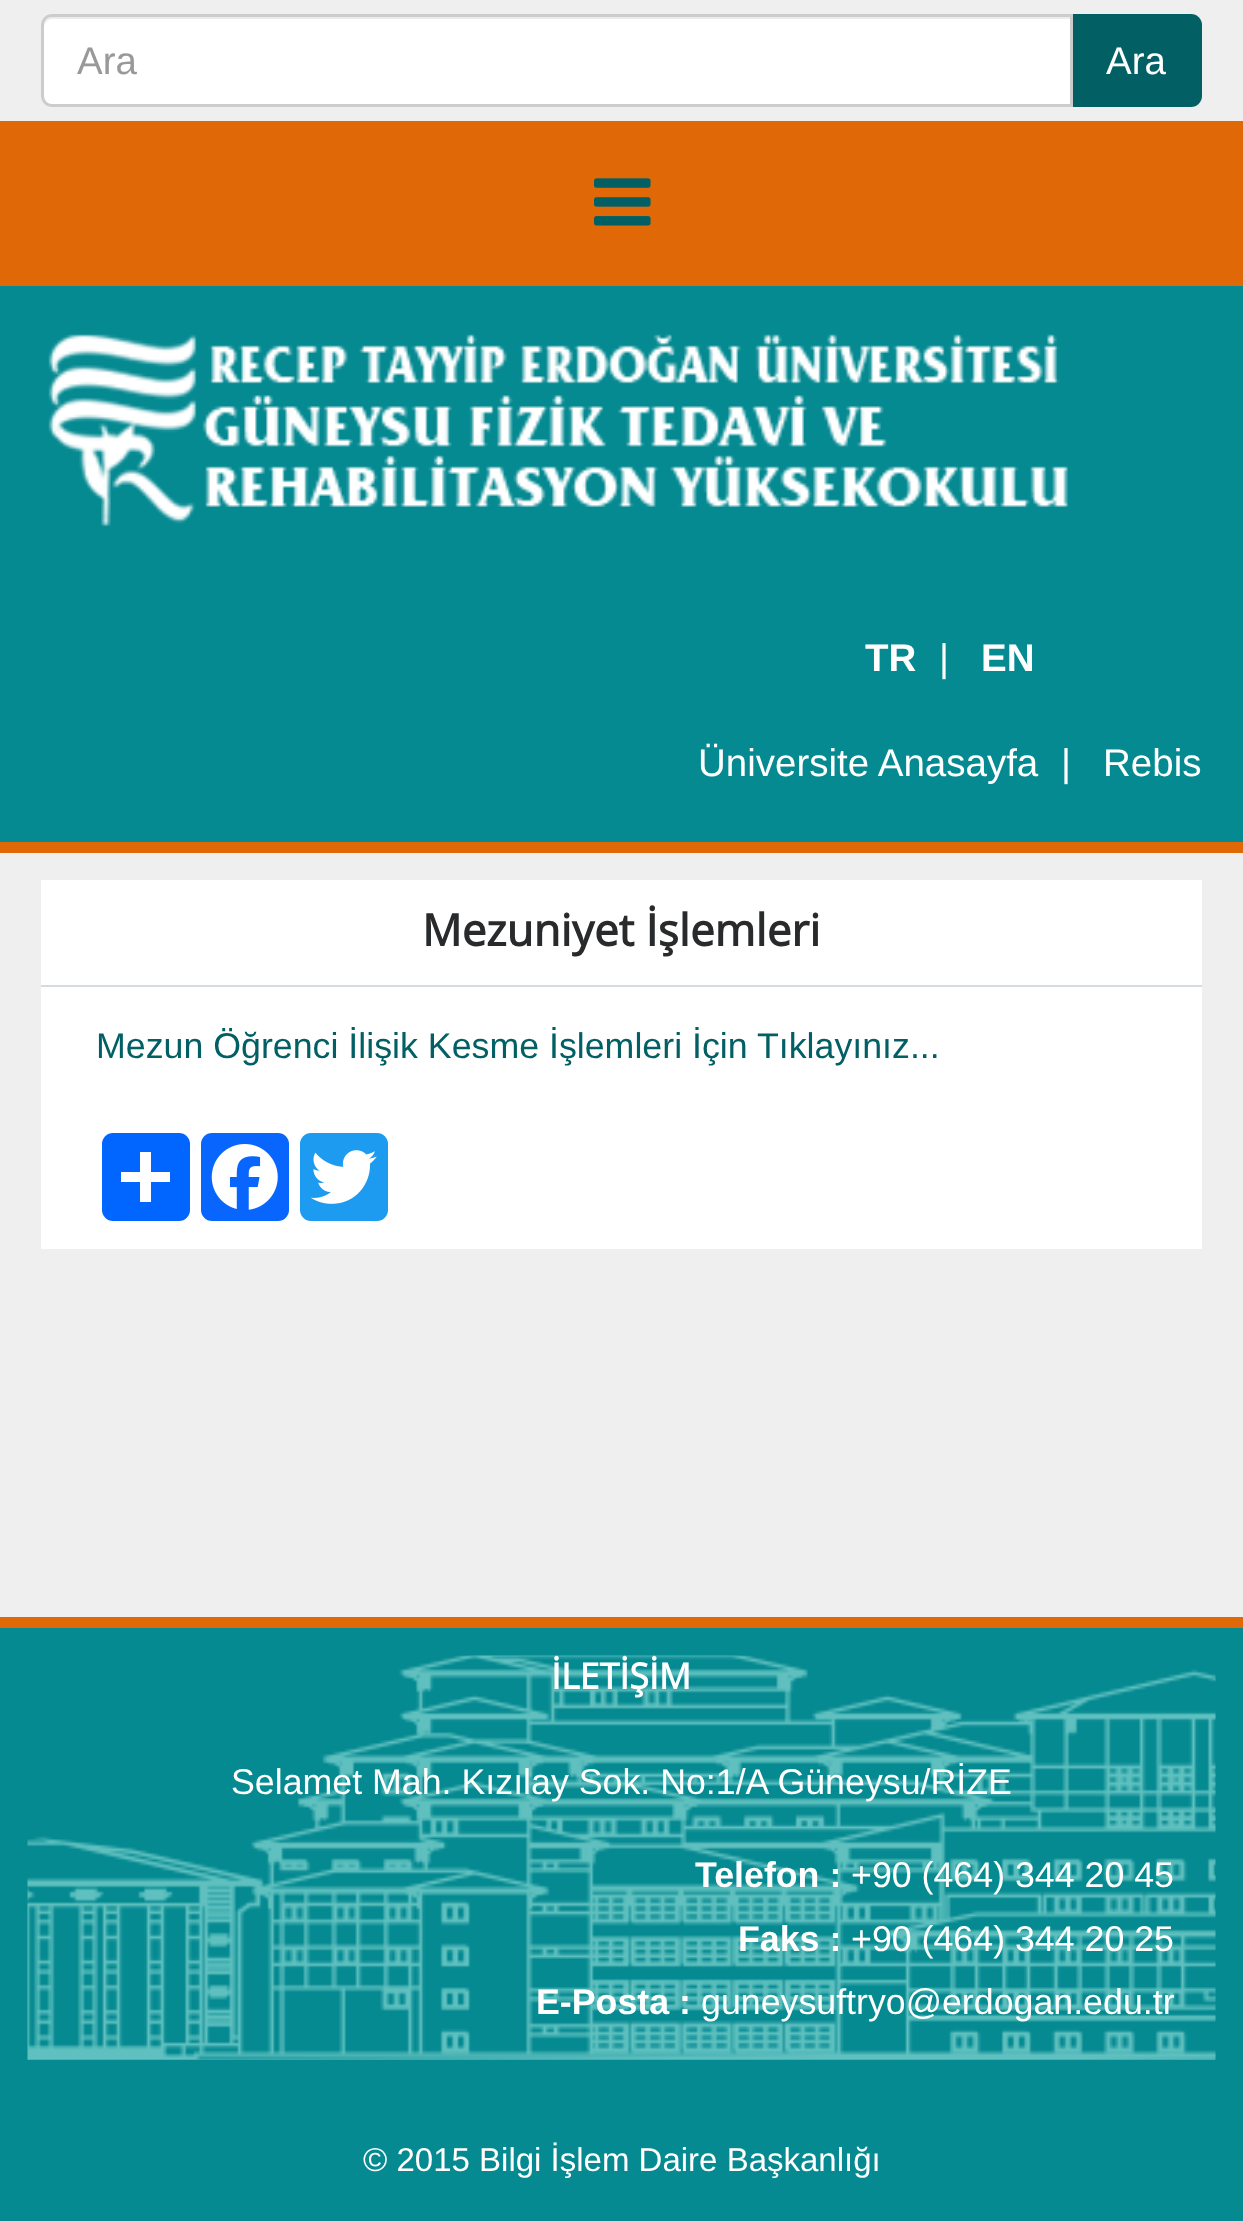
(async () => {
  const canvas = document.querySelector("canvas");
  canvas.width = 1243;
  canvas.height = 2221;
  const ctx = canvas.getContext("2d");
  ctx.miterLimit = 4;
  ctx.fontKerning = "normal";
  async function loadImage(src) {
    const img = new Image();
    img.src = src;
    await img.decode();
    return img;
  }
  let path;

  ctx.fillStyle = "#efefef";
  ctx.fillRect(0, 0, 1243, 2221);
  ctx.fillStyle = "#026065";
  ctx.beginPath();
  ctx.roundRect(1070, 14, 132, 93, [0, 11, 11, 0]);
  ctx.fill();
  ctx.fillStyle = "#ffffff";
  ctx.beginPath();
  ctx.roundRect(41, 14, 1032, 93, [11, 0, 0, 11]);
  ctx.fill();
  ctx.fillStyle = "#ececec";
  path = new Path2D("M52 19H1070V17H52C48 17 44 21 44 25V28C44 23 48 19 52 19Z");
  ctx.fill(path);
  ctx.beginPath();
  ctx.roundRect(42.5, 15.5, 1029, 90, [9.5, 0, 0, 9.5]);
  ctx.strokeStyle = "#cccccc";
  ctx.lineWidth = 3;
  ctx.stroke();
  ctx.fillStyle = "#e16806";
  ctx.fillRect(0, 121, 1243, 165);
  ctx.drawImage(await loadImage("img/1.png"), 594, 178, 57, 48);
  ctx.fillStyle = "#068a92";
  ctx.fillRect(0, 286, 1243, 556);
  ctx.fillStyle = "#e16806";
  ctx.fillRect(0, 842, 1243, 11);
  ctx.drawImage(await loadImage("img/2.png"), 48, 334, 1020, 193);
  for (const [x, y, w, h, color] of [
    [41, 880, 1161, 105, "#ffffff"],
    [41, 985, 1161, 2, "#d5dbe0"],
    [41, 987, 1161, 262, "#ffffff"],
  ]) {
    ctx.fillStyle = color;
    ctx.fillRect(x, y, w, h);
  }
  ctx.fillStyle = "#0166ff";
  ctx.beginPath();
  ctx.roundRect(102, 1133, 88, 88, 11);
  ctx.fill();
  ctx.fillStyle = "#ffffff";
  ctx.fillRect(140, 1152, 11, 50);
  ctx.fillRect(121, 1172, 49, 10);
  ctx.fillStyle = "#0866ff";
  ctx.beginPath();
  ctx.roundRect(201, 1133, 88, 88, 11);
  ctx.fill();
  ctx.drawImage(await loadImage("img/3.png"), 211, 1144, 67, 66);
  ctx.fillStyle = "#1d9bf0";
  ctx.beginPath();
  ctx.roundRect(300, 1133, 88, 88, 11);
  ctx.fill();
  ctx.drawImage(await loadImage("img/4.png"), 311, 1150, 66, 54);
  ctx.fillStyle = "#068a92";
  ctx.fillRect(0, 1628, 1243, 593);
  ctx.fillStyle = "#e16806";
  ctx.fillRect(0, 1617, 1243, 11);
  ctx.drawImage(await loadImage("img/5.png"), 27, 1655, 1189, 405);
  ctx.font = "38.5px Liberation Sans";
  ctx.fillStyle = "#999999";
  ctx.fillText("Ara", 77, 74);
  ctx.fillStyle = "#ffffff";
  ctx.fillText("Ara", 1106, 74);
  ctx.font = "bold 38.5px Liberation Sans";
  ctx.fillText("TR", 865, 671);
  ctx.font = "38.5px Liberation Sans";
  ctx.fillText("|", 939, 671);
  ctx.font = "bold 38.5px Liberation Sans";
  ctx.fillText("EN", 981, 671);
  ctx.font = "38.5px Liberation Sans";
  for (const [text, x, y] of [
    ["Üniversite Anasayfa", 698, 776],
    ["|", 1061, 776],
    ["Rebis", 1103, 776],
  ]) {
    ctx.fillText(text, x, y);
  }
  ctx.font = "bold 44px Open Sans";
  ctx.fillStyle = "#282a2c";
  ctx.fillText("Mezuniyet İşlemleri", 422, 946);
  ctx.font = "35.75px Liberation Sans";
  ctx.fillStyle = "#026065";
  ctx.fillText("Mezun Öğrenci İlişik Kesme İşlemleri İçin Tıklayınız...", 96, 1058);
  ctx.font = "bold 35.75px Open Sans";
  ctx.fillStyle = "#ffffff";
  ctx.fillText("İLETİŞİM", 551, 1689);
  ctx.font = "35.75px Liberation Sans";
  ctx.fillText("Selamet Mah. Kızılay Sok. No:1/A Güneysu/RİZE", 231, 1794);
  ctx.font = "bold 35.75px Liberation Sans";
  ctx.fillText("Telefon :", 695, 1887);
  ctx.font = "35.75px Liberation Sans";
  ctx.fillText("+90 (464) 344 20 45", 851, 1887);
  ctx.font = "bold 35.75px Liberation Sans";
  ctx.fillText("Faks :", 738, 1951);
  ctx.font = "35.75px Liberation Sans";
  ctx.fillText("+90 (464) 344 20 25", 851, 1951);
  ctx.font = "bold 35.75px Liberation Sans";
  ctx.fillText("E-Posta :", 536, 2014);
  ctx.font = "35.75px Liberation Sans";
  ctx.fillText("guneysuftryo@erdogan.edu.tr", 701, 2014);
  ctx.font = "33px Liberation Sans";
  ctx.fillText("© 2015 Bilgi İşlem Daire Başkanlığı", 363, 2171);
})();
